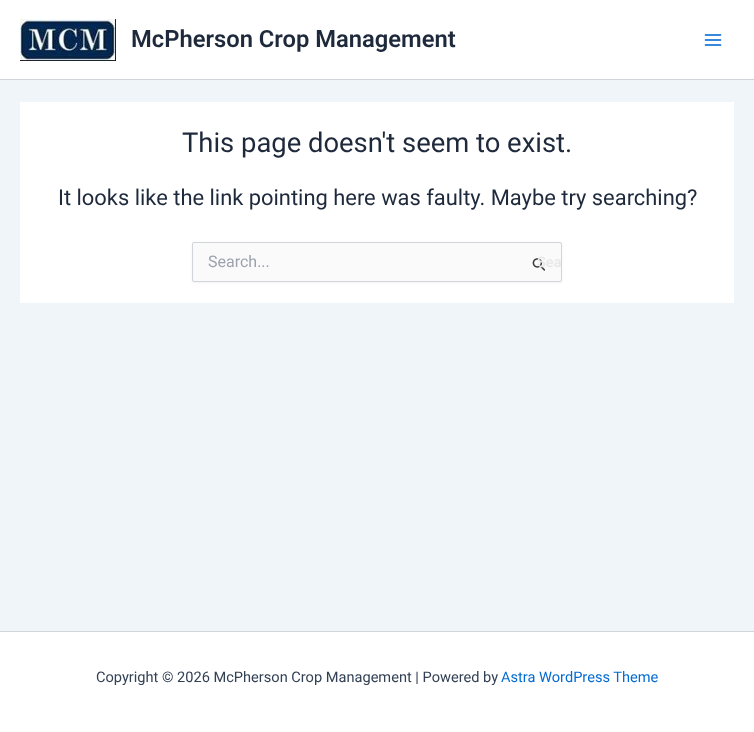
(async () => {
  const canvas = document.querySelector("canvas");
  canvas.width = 754;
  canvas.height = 732;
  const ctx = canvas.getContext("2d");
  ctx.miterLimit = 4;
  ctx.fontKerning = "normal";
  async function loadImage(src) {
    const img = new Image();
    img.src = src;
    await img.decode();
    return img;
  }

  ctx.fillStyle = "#f0f5fa";
  ctx.fillRect(0, 0, 754, 732);
  ctx.fillStyle = "#ffffff";
  ctx.fillRect(0, 0, 754, 79);
  ctx.fillStyle = "#d1d5db";
  ctx.fillRect(0, 79, 754, 1);
  ctx.drawImage(await loadImage("img/1.png"), 20, 19, 96, 42);
  ctx.drawImage(await loadImage("img/2.png"), 704, 34, 18, 12);
  ctx.fillStyle = "#ffffff";
  ctx.fillRect(20, 102, 714, 201);
  ctx.fillStyle = "rgba(0, 0, 0, 0.05)";
  ctx.filter = "blur(1px)";
  ctx.beginPath();
  ctx.roundRect(192, 243, 370, 40, 2);
  ctx.fill();
  ctx.filter = "none";
  ctx.fillStyle = "#fafafa";
  ctx.beginPath();
  ctx.roundRect(192.5, 242.5, 369, 39, 1.5);
  ctx.fill();
  ctx.strokeStyle = "#d1d5db";
  ctx.stroke();
  ctx.drawImage(await loadImage("img/3.png"), 532, 258, 13, 13);
  ctx.fillStyle = "#ffffff";
  ctx.fillRect(0, 632, 754, 100);
  ctx.fillStyle = "#d1d5db";
  ctx.fillRect(0, 631, 754, 1);
  ctx.font = "600 23.75px Roboto";
  ctx.fillStyle = "#1e293b";
  ctx.fillText("McPherson Crop Management", 131, 47);
  ctx.font = "27.4px Roboto";
  ctx.fillText("This page doesn't seem to exist.", 182, 152);
  ctx.font = "21.9px Roboto";
  ctx.fillText("It looks like the link pointing here was faulty. Maybe try searching?", 58, 205);
  ctx.font = "16px Roboto";
  ctx.fillStyle = "#9ca3af";
  ctx.fillText("Search...", 208, 267);
  ctx.font = "500 14.6px Roboto";
  ctx.fillStyle = "#e8e8e8";
  ctx.fillText("Sea", 537, 267);
  ctx.font = "14.6px Roboto";
  ctx.fillStyle = "#334155";
  ctx.fillText("Copyright © 2026 McPherson Crop Management | Powered by", 96, 682);
  ctx.fillStyle = "#046bd2";
  ctx.fillText("Astra WordPress Theme", 501, 682);
})();
